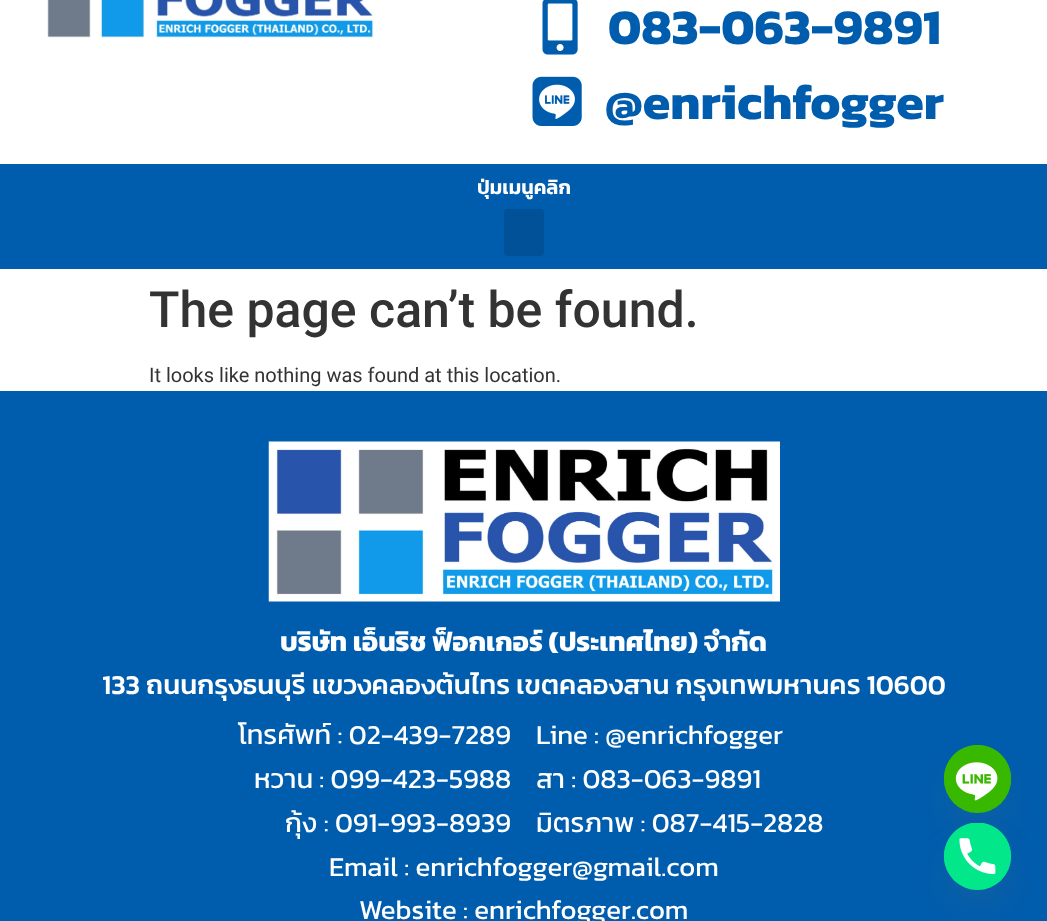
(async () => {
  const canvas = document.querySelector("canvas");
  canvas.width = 1047;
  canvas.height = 921;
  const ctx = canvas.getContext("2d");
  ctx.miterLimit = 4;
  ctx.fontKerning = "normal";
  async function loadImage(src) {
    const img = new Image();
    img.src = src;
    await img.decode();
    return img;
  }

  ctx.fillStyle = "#ffffff";
  ctx.fillRect(0, 0, 1047, 921);
  ctx.drawImage(await loadImage("img/1.png"), 47, 0, 327, 38);
  ctx.drawImage(await loadImage("img/2.png"), 542, 0, 36, 55);
  ctx.drawImage(await loadImage("img/3.png"), 532, 76, 50, 50);
  ctx.fillStyle = "#005dad";
  ctx.fillRect(0, 164, 1047, 105);
  ctx.fillStyle = "#005198";
  ctx.beginPath();
  ctx.roundRect(504, 209, 40, 47, 4);
  ctx.fill();
  ctx.fillStyle = "#005dad";
  ctx.fillRect(0, 391, 1047, 530);
  ctx.drawImage(await loadImage("img/4.png"), 268, 441, 512, 161);
  ctx.fillStyle = "rgba(73, 104, 126, 0.16)";
  ctx.filter = "blur(15px)";
  ctx.beginPath();
  ctx.roundRect(944, 765, 67, 68, 33.5);
  ctx.fill();
  ctx.filter = "none";
  ctx.fillStyle = "#38b900";
  ctx.beginPath();
  ctx.roundRect(944, 745, 67, 68, 33.5);
  ctx.fill();
  ctx.drawImage(await loadImage("img/5.png"), 944, 745, 67, 56);
  ctx.fillStyle = "rgba(73, 104, 126, 0.16)";
  ctx.filter = "blur(15px)";
  ctx.beginPath();
  ctx.roundRect(944, 843, 67, 67, 33.5);
  ctx.fill();
  ctx.filter = "none";
  ctx.fillStyle = "#03e78b";
  ctx.beginPath();
  ctx.arc(977.5, 856.5, 33.5, 0, Math.PI * 2);
  ctx.fill();
  ctx.drawImage(await loadImage("img/6.png"), 944, 823, 67, 67);
  ctx.font = "bold 50px Kanit";
  ctx.fillStyle = "#005dad";
  ctx.fillText("083-063-9891", 608, 44);
  ctx.fillText("@enrichfogger", 605, 119);
  ctx.font = "600 20px Kanit";
  ctx.fillStyle = "#ffffff";
  ctx.fillText("ปุ่มเมนูคลิก", 477, 194);
  ctx.font = "500 50px Roboto";
  ctx.fillStyle = "#333333";
  ctx.fillText("The page can’t be found.", 149, 327);
  ctx.font = "20px Roboto";
  ctx.fillText("It looks like nothing was found at this location.", 149, 382);
  ctx.font = "bold 27.5px Kanit";
  ctx.fillStyle = "#ffffff";
  ctx.fillText("บริษัท เอ็นริช ฟ็อกเกอร์ (ประเทศไทย) จำกัด", 280, 651);
  ctx.font = "500 27.5px Kanit";
  ctx.fillText("133 ถนนกรุงธนบุรี แขวงคลองต้นไทร เขตคลองสาน กรุงเทพมหานคร 10600", 102, 694);
  ctx.font = "27.5px Kanit";
  for (const [text, x, y] of [
    ["โทรศัพท์ : 02-439-7289", 238, 744],
    ["หวาน : 099-423-5988", 254, 788],
    ["กุ้ง : 091-993-8939", 285, 832],
    ["Line : @enrichfogger", 536, 744],
    ["สา : 083-063-9891", 536, 788],
    ["มิตรภาพ : 087-415-2828", 536, 832],
    ["Email : enrichfogger@gmail.com", 329, 876],
    ["Website : enrichfogger.com", 359, 919],
  ]) {
    ctx.fillText(text, x, y);
  }
})();
